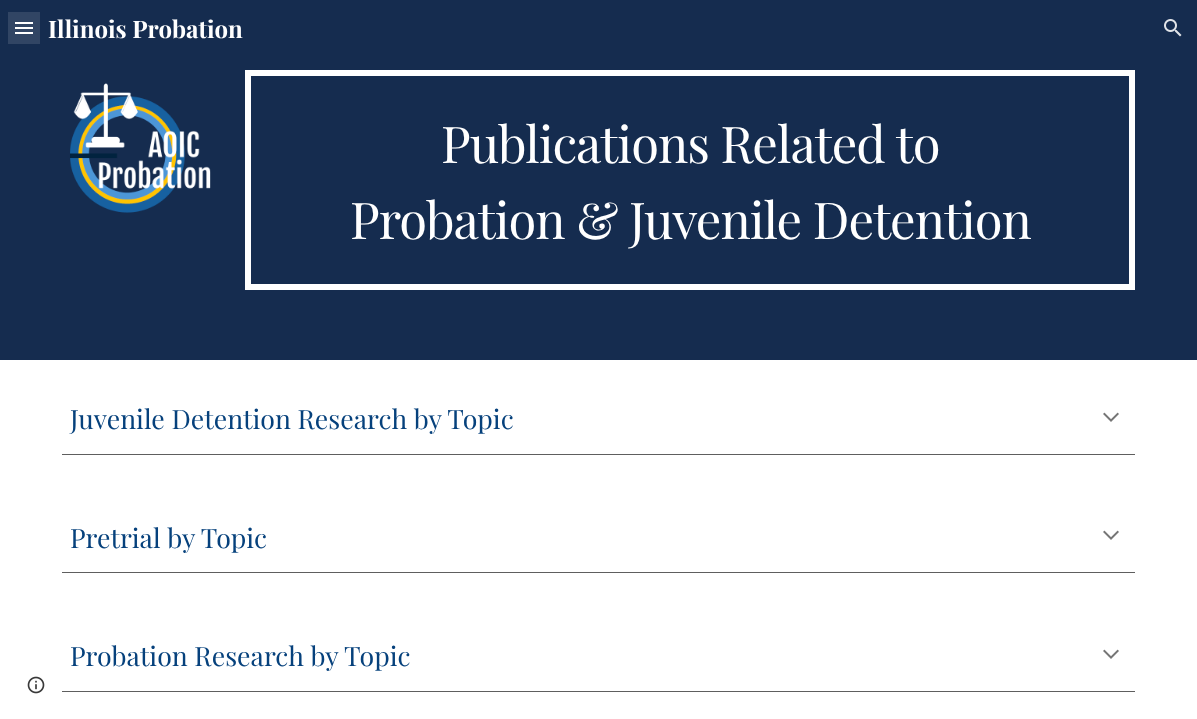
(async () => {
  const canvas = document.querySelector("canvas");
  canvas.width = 1197;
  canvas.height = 719;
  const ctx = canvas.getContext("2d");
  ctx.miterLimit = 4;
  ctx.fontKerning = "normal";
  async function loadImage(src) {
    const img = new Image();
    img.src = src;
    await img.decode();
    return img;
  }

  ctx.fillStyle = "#ffffff";
  ctx.fillRect(0, 0, 1197, 719);
  for (const [x, y, w, h, color] of [
    [0, 0, 1197, 360, "#152c4f"],
    [8, 12, 32, 32, "#314564"],
    [15, 22, 18, 2, "#ffffff"],
    [15, 27, 18, 2, "#ffffff"],
    [15, 32, 18, 2, "#ffffff"],
  ]) {
    ctx.fillStyle = color;
    ctx.fillRect(x, y, w, h);
  }
  ctx.drawImage(await loadImage("img/1.png"), 1164, 19, 18, 18);
  ctx.drawImage(await loadImage("img/2.png"), 70, 83, 141, 130);
  ctx.strokeStyle = "#ffffff";
  ctx.lineWidth = 6;
  ctx.strokeRect(248, 73, 884, 214);
  ctx.fillStyle = "#5e5e5e";
  ctx.fillRect(62, 454, 1073, 1);
  ctx.drawImage(await loadImage("img/3.png"), 1103, 412, 16, 10);
  ctx.fillRect(62, 572, 1073, 1);
  ctx.drawImage(await loadImage("img/3.png"), 1103, 530, 16, 10);
  ctx.fillRect(62, 691, 1073, 1);
  ctx.drawImage(await loadImage("img/3.png"), 1103, 649, 16, 10);
  ctx.drawImage(await loadImage("img/4.png"), 27, 676, 18, 18);
  ctx.font = "bold 24px Playfair Display";
  ctx.fillStyle = "#ffffff";
  ctx.fillText("Illinois Probation", 48, 38);
  ctx.letterSpacing = "-1px";
  ctx.font = "50.7px Playfair Display";
  ctx.fillText("Publications Related to", 441, 163);
  ctx.fillText("Probation & Juvenile Detention", 350, 239);
  ctx.letterSpacing = "0px";
  ctx.font = "26.7px Playfair Display";
  ctx.fillStyle = "#06417c";
  for (const [text, x, y] of [
    ["Juvenile Detention Research by Topic", 70, 429],
    ["Pretrial by Topic", 70, 548],
    ["Probation Research by Topic", 70, 666],
  ]) {
    ctx.fillText(text, x, y);
  }
})();
